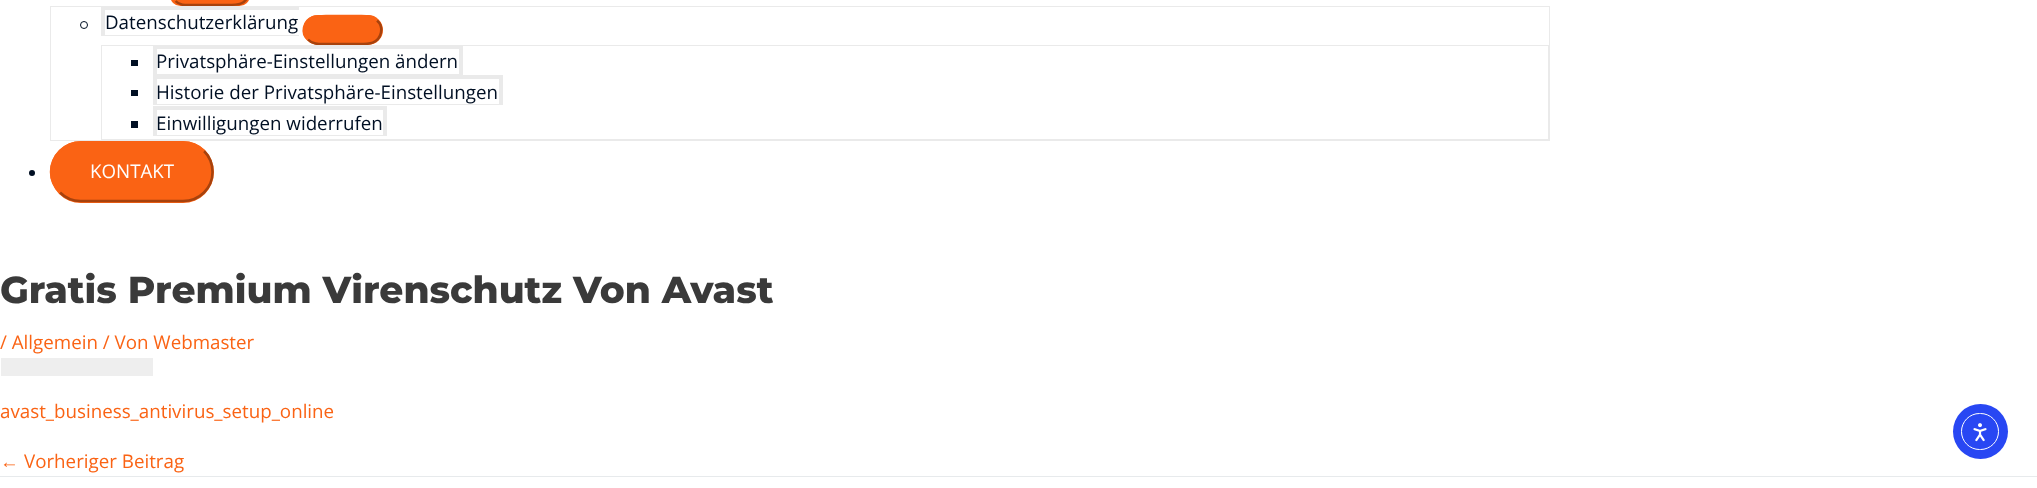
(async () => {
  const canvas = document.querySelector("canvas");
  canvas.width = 2037;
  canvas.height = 488;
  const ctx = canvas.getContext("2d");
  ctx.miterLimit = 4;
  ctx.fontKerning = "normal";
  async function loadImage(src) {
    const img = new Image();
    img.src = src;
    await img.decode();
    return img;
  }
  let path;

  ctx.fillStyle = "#ffffff";
  ctx.fillRect(0, 0, 2037, 488);
  ctx.fillStyle = "#fa6314";
  ctx.beginPath();
  ctx.roundRect(170, -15, 80, 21, 15);
  ctx.fill();
  ctx.strokeStyle = "#eaeaea";
  ctx.strokeRect(50.5, 6.5, 1499, 134);
  path = new Path2D("M244.5-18.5C248-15.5 249.5-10.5 248.5-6C246 5.5 236 5 226.5 5H193.5C187 5 180 6 175.5 1");
  ctx.strokeStyle = "#a7420d";
  ctx.lineWidth = 2.5;
  ctx.stroke(path);
  path = new Path2D("M175.5 1C172-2 170.5-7 171.5-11.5C174-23 184-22.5 193.5-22.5H226.5C233-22.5 240-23.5 244.5-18.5");
  ctx.strokeStyle = "#fa6314";
  ctx.stroke(path);
  ctx.beginPath();
  ctx.arc(84, 25, 3.5, 0, Math.PI * 2);
  ctx.strokeStyle = "#000f23";
  ctx.lineWidth = 1;
  ctx.stroke();
  for (const [x, y, w, h, color] of [
    [101, 6, 198, 4, "#eaeaea"],
    [101, 35, 198, 1, "#eaeaea"],
    [101, 6, 4, 30, "#eaeaea"],
  ]) {
    ctx.fillStyle = color;
    ctx.fillRect(x, y, w, h);
  }
  ctx.fillStyle = "#fa6314";
  ctx.beginPath();
  ctx.roundRect(303, 15, 80, 30, 15);
  ctx.fill();
  ctx.strokeStyle = "#eaeaea";
  ctx.strokeRect(101.5, 45.5, 1447, 94);
  path = new Path2D("M377 20.5C380.5 23.5 382 28 381 32.5C378.5 44 368.5 44 359 44H326C319.5 44 312.5 44.5 308 39.5");
  ctx.strokeStyle = "#a7420d";
  ctx.lineWidth = 2.5;
  ctx.stroke(path);
  path = new Path2D("M308 39.5C304.5 36.5 303 32 304 27.5C306.5 16 316.5 16 326 16H359C365.5 16 372.5 15.5 377 20.5");
  ctx.strokeStyle = "#fa6314";
  ctx.stroke(path);
  for (const [x, y, w, h, color] of [
    [131, 60, 7, 6, "#000f23"],
    [153, 45, 310, 4, "#eaeaea"],
    [459, 45, 4, 30, "#eaeaea"],
    [153, 74, 310, 1, "#eaeaea"],
    [153, 45, 4, 30, "#eaeaea"],
    [131, 90, 7, 6, "#000f23"],
    [153, 75, 350, 4, "#eaeaea"],
    [499, 75, 4, 30, "#eaeaea"],
    [153, 104, 350, 1, "#eaeaea"],
    [153, 75, 4, 30, "#eaeaea"],
    [131, 121, 7, 7, "#000f23"],
    [153, 106, 233, 4, "#eaeaea"],
    [383, 106, 4, 30, "#eaeaea"],
    [153, 135, 233, 1, "#eaeaea"],
    [153, 106, 4, 30, "#eaeaea"],
  ]) {
    ctx.fillStyle = color;
    ctx.fillRect(x, y, w, h);
  }
  ctx.fillStyle = "#000f23";
  ctx.beginPath();
  ctx.arc(32, 173, 3, 0, Math.PI * 2);
  ctx.fill();
  ctx.fillStyle = "#fa6314";
  ctx.beginPath();
  ctx.roundRect(50, 141, 164, 62, 31);
  ctx.fill();
  path = new Path2D("M204 151C209.5 156.5 212.5 164 212.5 172C212.5 179.5 209.5 187 204 192.5C198.5 198 191 201 183 201H80.5C73 201 65.5 198 60 192.5");
  ctx.strokeStyle = "#a7420d";
  ctx.stroke(path);
  path = new Path2D("M60 192.5C54.5 187 51 179.5 51 172C51 164 54.5 156.5 60 151C65.5 145.5 73 142.5 80.5 142.5H183C191 142.5 198.5 145.5 204 151");
  ctx.strokeStyle = "#fa6314";
  ctx.stroke(path);
  ctx.fillStyle = "#eeeeee";
  ctx.fillRect(1, 358, 152, 18);
  ctx.fillStyle = "#e7eaec";
  ctx.fillRect(0, 476, 2037, 1);
  ctx.fillStyle = "#2847f3";
  ctx.beginPath();
  ctx.arc(1980.5, 431.5, 27.5, 0, Math.PI * 2);
  ctx.fill();
  ctx.beginPath();
  ctx.roundRect(1961.5, 413.5, 37, 36, 18);
  ctx.strokeStyle = "#ffffff";
  ctx.lineWidth = 1;
  ctx.stroke();
  ctx.drawImage(await loadImage("img/1.png"), 1973, 423, 14, 19);
  ctx.font = "18.75px Open Sans";
  ctx.fillStyle = "#000f23";
  for (const [text, x, y] of [
    ["Datenschutzerklärung", 105, 29],
    ["Privatsphäre-Einstellungen ändern", 156, 68],
    ["Historie der Privatsphäre-Einstellungen", 156, 99],
    ["Einwilligungen widerrufen", 156, 130],
  ]) {
    ctx.fillText(text, x, y);
  }
  ctx.fillStyle = "#ffffff";
  ctx.fillText("KONTAKT", 90, 178);
  ctx.font = "800 37.5px Montserrat";
  ctx.fillStyle = "#3a3a3a";
  ctx.fillText("Gratis Premium Virenschutz Von Avast", 0, 303);
  ctx.font = "18.75px Open Sans";
  ctx.fillStyle = "#fa6314";
  ctx.fillText("/ Allgemein / Von Webmaster", 0, 349);
  ctx.fillText("avast_business_antivirus_setup_online", 0, 418);
  ctx.font = "18.75px Liberation Sans";
  ctx.fillText("←", 0, 468);
  ctx.font = "18.75px Open Sans";
  ctx.fillText("Vorheriger Beitrag", 24, 468);
})();
